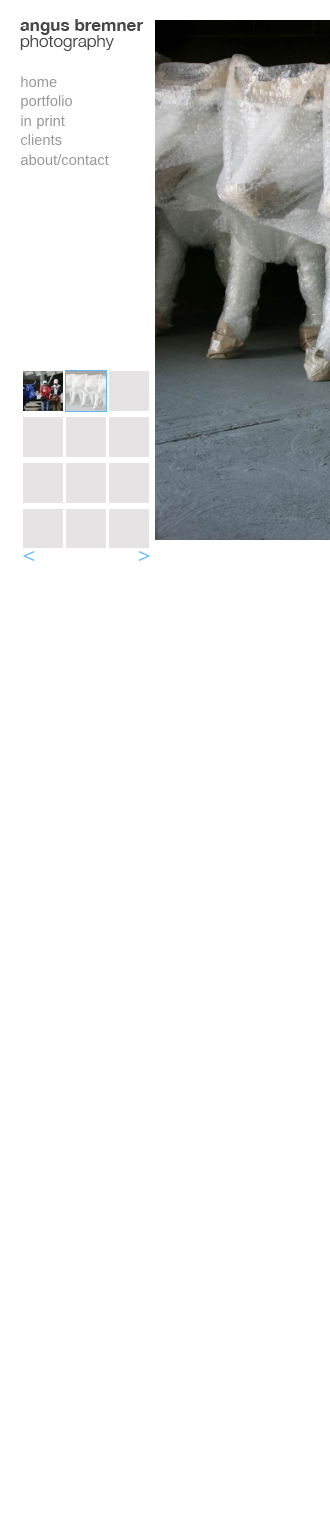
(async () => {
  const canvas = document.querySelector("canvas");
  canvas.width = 330;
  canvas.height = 1528;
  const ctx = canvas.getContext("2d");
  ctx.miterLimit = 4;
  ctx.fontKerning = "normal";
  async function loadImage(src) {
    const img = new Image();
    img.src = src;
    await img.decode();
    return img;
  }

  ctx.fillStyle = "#ffffff";
  ctx.fillRect(0, 0, 330, 1528);
  ctx.drawImage(await loadImage("img/1.png"), 20, 19, 123, 32);
  ctx.drawImage(await loadImage("img/2.png"), 21, 76, 36, 11);
  ctx.drawImage(await loadImage("img/3.png"), 21, 95, 51, 14);
  ctx.drawImage(await loadImage("img/4.png"), 21, 115, 10, 11);
  ctx.drawImage(await loadImage("img/5.png"), 37, 115, 28, 14);
  ctx.drawImage(await loadImage("img/6.png"), 21, 134, 41, 11);
  ctx.drawImage(await loadImage("img/7.png"), 21, 154, 88, 11);
  ctx.drawImage(await loadImage("img/8.png"), 23, 371, 40, 40);
  ctx.drawImage(await loadImage("img/9.png"), 66, 371, 40, 40);
  ctx.strokeStyle = "#61b8fb";
  ctx.strokeRect(65.5, 370.5, 41, 41);
  for (const [x, y, w, h, color] of [
    [109, 371, 40, 40, "#e5e3e4"],
    [23, 417, 40, 40, "#e5e3e4"],
    [66, 417, 40, 40, "#e5e3e4"],
    [109, 417, 40, 40, "#e5e3e4"],
    [23, 463, 40, 40, "#e5e3e4"],
    [66, 463, 40, 40, "#e5e3e4"],
    [109, 463, 40, 40, "#e5e3e4"],
    [23, 509, 40, 39, "#e5e3e4"],
    [66, 509, 40, 39, "#e5e3e4"],
    [109, 509, 40, 39, "#e5e3e4"],
  ]) {
    ctx.fillStyle = color;
    ctx.fillRect(x, y, w, h);
  }
  ctx.drawImage(await loadImage("img/10.png"), 23, 550, 16, 12);
  ctx.drawImage(await loadImage("img/11.png"), 136, 550, 14, 12);
  ctx.drawImage(await loadImage("img/12.png"), 155, 20, 175, 520);
})();
